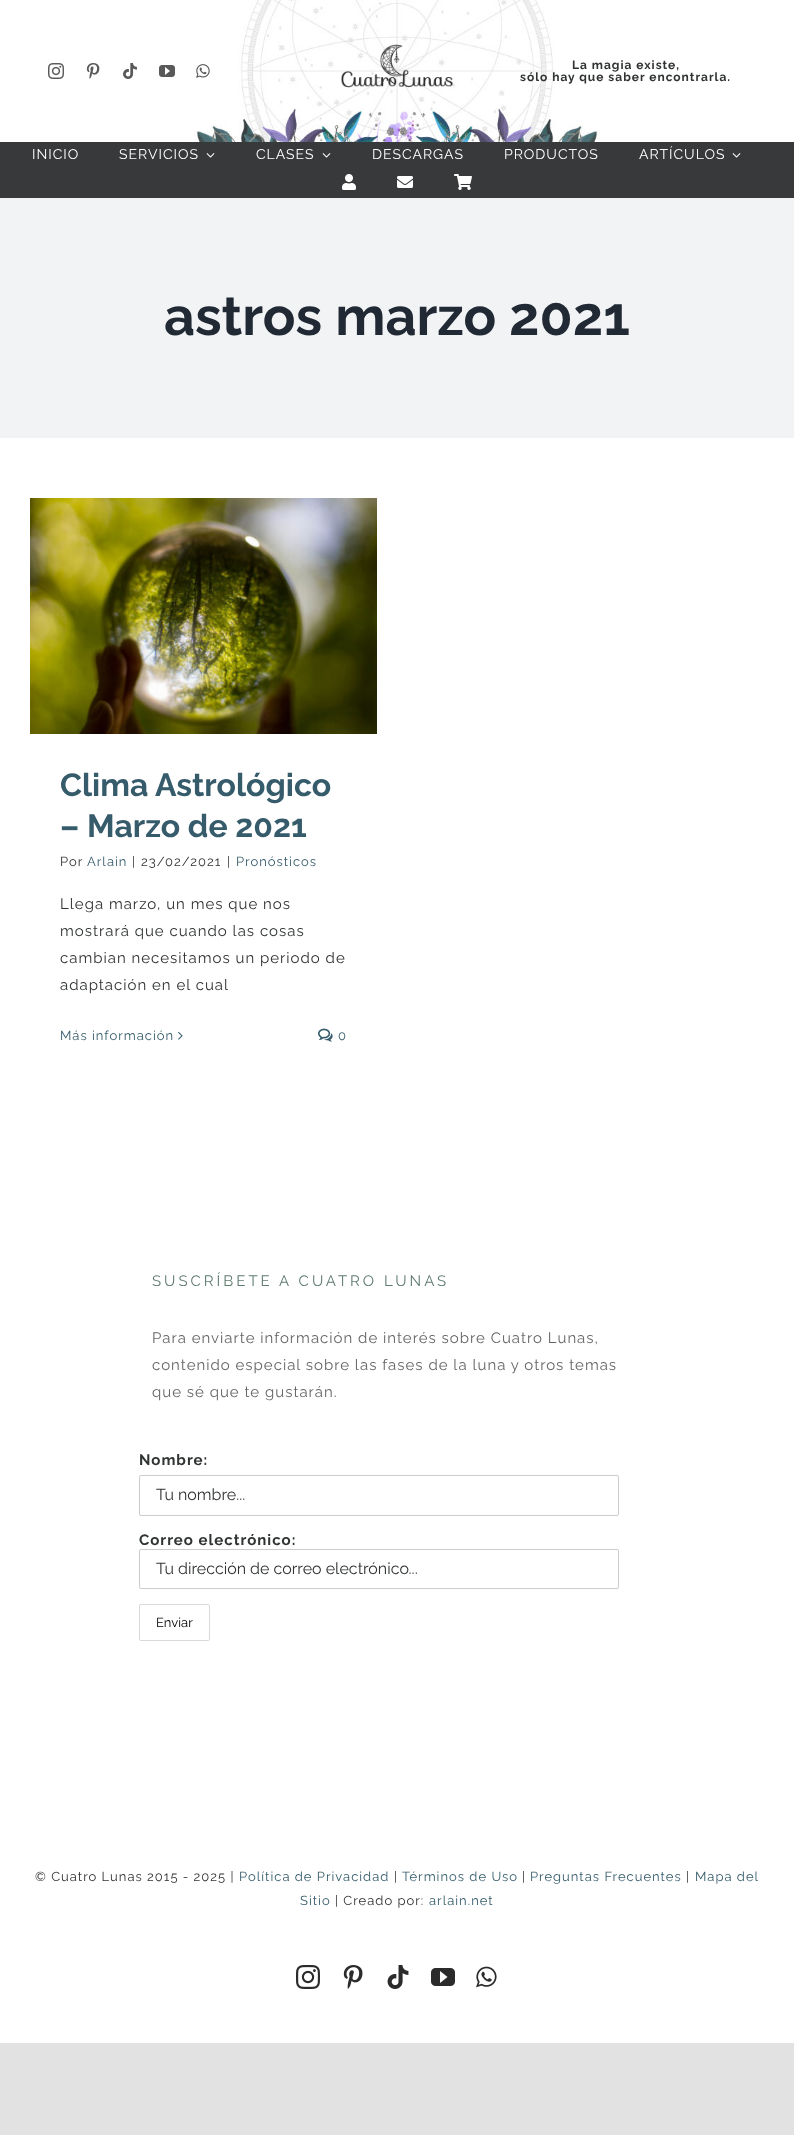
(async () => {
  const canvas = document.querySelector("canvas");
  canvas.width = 794;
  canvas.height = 2135;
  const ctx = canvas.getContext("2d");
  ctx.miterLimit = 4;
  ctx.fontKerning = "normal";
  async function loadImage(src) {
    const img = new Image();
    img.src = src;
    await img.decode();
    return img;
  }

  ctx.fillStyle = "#e2e2e2";
  ctx.fillRect(0, 0, 794, 2135);
  ctx.fillStyle = "#ffffff";
  ctx.fillRect(0, 0, 794, 2043);
  ctx.drawImage(await loadImage("img/1.png"), 194, 0, 406, 142);
  ctx.drawImage(await loadImage("img/2.png"), 48, 63, 16, 16);
  ctx.drawImage(await loadImage("img/3.png"), 86, 63, 14, 16);
  ctx.drawImage(await loadImage("img/4.png"), 123, 63, 14, 16);
  ctx.drawImage(await loadImage("img/5.png"), 159, 65, 16, 12);
  ctx.drawImage(await loadImage("img/6.png"), 196, 64, 14, 14);
  ctx.drawImage(await loadImage("img/7.png"), 341, 44, 113, 44);
  ctx.fillStyle = "#38393a";
  ctx.fillRect(0, 142, 794, 56);
  ctx.drawImage(await loadImage("img/8.png"), 206, 153, 9, 5);
  ctx.drawImage(await loadImage("img/8.png"), 322, 153, 9, 5);
  ctx.drawImage(await loadImage("img/8.png"), 732, 153, 9, 5);
  ctx.drawImage(await loadImage("img/9.png"), 342, 174, 14, 16);
  ctx.drawImage(await loadImage("img/10.png"), 397, 176, 16, 12);
  ctx.drawImage(await loadImage("img/11.png"), 454, 174, 18, 16);
  ctx.fillStyle = "#f2f3f5";
  ctx.fillRect(0, 198, 794, 240);
  ctx.drawImage(await loadImage("img/12.png"), 30, 498, 347, 236);
  ctx.drawImage(await loadImage("img/13.png"), 178, 1031, 5, 9);
  ctx.drawImage(await loadImage("img/14.png"), 318, 1028, 15, 14);
  ctx.beginPath();
  ctx.roundRect(139.5, 1475.5, 479, 40, 1.5);
  ctx.strokeStyle = "#cccccc";
  ctx.stroke();
  ctx.beginPath();
  ctx.roundRect(139.5, 1549.5, 479, 39, 1.5);
  ctx.stroke();
  ctx.beginPath();
  ctx.roundRect(139.5, 1604.5, 70, 36, 1.5);
  ctx.strokeStyle = "#d9d9d9";
  ctx.stroke();
  ctx.drawImage(await loadImage("img/15.png"), 296, 1965, 24, 24);
  ctx.drawImage(await loadImage("img/16.png"), 343, 1965, 20, 24);
  ctx.drawImage(await loadImage("img/17.png"), 387, 1965, 22, 24);
  ctx.drawImage(await loadImage("img/18.png"), 431, 1968, 24, 18);
  ctx.drawImage(await loadImage("img/19.png"), 476, 1966, 21, 22);
  ctx.letterSpacing = "1px";
  ctx.font = "bold 12px Raleway";
  ctx.fillStyle = "#2f3331";
  ctx.fillText("La magia existe,", 572, 69);
  ctx.fillText("sólo hay que saber encontrarla.", 520, 81);
  ctx.font = "14px Raleway";
  ctx.fillStyle = "#ffffff";
  for (const [text, x, y] of [
    ["INICIO", 32, 159],
    ["SERVICIOS", 119, 159],
    ["CLASES", 256, 159],
    ["DESCARGAS", 372, 159],
    ["PRODUCTOS", 504, 159],
    ["ARTÍCULOS", 639, 159],
  ]) {
    ctx.fillText(text, x, y);
  }
  ctx.letterSpacing = "0px";
  ctx.font = "bold 54px Raleway";
  ctx.fillStyle = "#212934";
  ctx.fillText("astros marzo 2021", 164, 335);
  ctx.font = "bold 32px Raleway";
  ctx.fillStyle = "#365c6c";
  ctx.fillText("Clima Astrológico", 60, 796);
  ctx.fillText("– Marzo de 2021", 60, 837);
  ctx.letterSpacing = "1px";
  ctx.font = "13px Raleway";
  ctx.fillStyle = "#2f3331";
  ctx.fillText("Por", 60, 866);
  ctx.fillStyle = "#365c6c";
  ctx.fillText("Arlain", 87, 866);
  ctx.fillStyle = "#2f3331";
  for (const [text, x, y] of [
    ["|", 132, 866],
    ["23/02/2021", 141, 866],
    ["|", 227, 866],
  ]) {
    ctx.fillText(text, x, y);
  }
  ctx.fillStyle = "#365c6c";
  ctx.fillText("Pronósticos", 236, 866);
  ctx.font = "15px Raleway";
  ctx.fillStyle = "#2f3331";
  for (const [text, x, y] of [
    ["Llega marzo, un mes que nos", 60, 909],
    ["mostrará que cuando las cosas", 60, 936],
    ["cambian necesitamos un periodo de", 60, 963],
    ["adaptación en el cual", 60, 990],
  ]) {
    ctx.fillText(text, x, y);
  }
  ctx.font = "13px Raleway";
  ctx.fillStyle = "#365c6c";
  ctx.fillText("Más información", 60, 1040);
  ctx.fillText("0", 338, 1040);
  ctx.letterSpacing = "3px";
  ctx.font = "15px Raleway";
  ctx.fillStyle = "#5f7b6e";
  ctx.fillText("SUSCRÍBETE A CUATRO LUNAS", 152, 1286);
  ctx.letterSpacing = "1px";
  ctx.fillStyle = "#666666";
  for (const [text, x, y] of [
    ["Para enviarte información de interés sobre Cuatro Lunas,", 152, 1343],
    ["contenido especial sobre las fases de la luna y otros temas", 152, 1370],
    ["que sé que te gustarán.", 152, 1397],
  ]) {
    ctx.fillText(text, x, y);
  }
  ctx.font = "bold 15px Raleway";
  ctx.fillStyle = "#2f3331";
  ctx.fillText("Nombre:", 139, 1465);
  ctx.letterSpacing = "0px";
  ctx.font = "16px Raleway";
  ctx.fillText("Tu nombre...", 156, 1500);
  ctx.letterSpacing = "1px";
  ctx.font = "bold 15px Raleway";
  ctx.fillText("Correo electrónico:", 139, 1545);
  ctx.letterSpacing = "0px";
  ctx.font = "16px Raleway";
  ctx.fillText("Tu dirección de correo electrónico...", 156, 1574);
  ctx.font = "13px Raleway";
  ctx.fillStyle = "#000000";
  ctx.fillText("Enviar", 156, 1627);
  ctx.letterSpacing = "1px";
  ctx.fillStyle = "#2f3331";
  ctx.fillText("© Cuatro Lunas 2015 - 2025 |", 35, 1881);
  ctx.fillStyle = "#365c6c";
  ctx.fillText("Política de Privacidad", 239, 1881);
  ctx.fillStyle = "#2f3331";
  ctx.fillText("|", 394, 1881);
  ctx.fillStyle = "#365c6c";
  ctx.fillText("Términos de Uso", 402, 1881);
  ctx.fillStyle = "#2f3331";
  ctx.fillText("|", 522, 1881);
  ctx.fillStyle = "#365c6c";
  ctx.fillText("Preguntas Frecuentes", 530, 1881);
  ctx.fillStyle = "#2f3331";
  ctx.fillText("|", 686, 1881);
  ctx.fillStyle = "#365c6c";
  ctx.fillText("Mapa del", 695, 1881);
  ctx.fillText("Sitio", 300, 1905);
  ctx.fillStyle = "#2f3331";
  ctx.fillText("| Creado por:", 335, 1905);
  ctx.fillStyle = "#365c6c";
  ctx.fillText("arlain.net", 429, 1905);
})();
